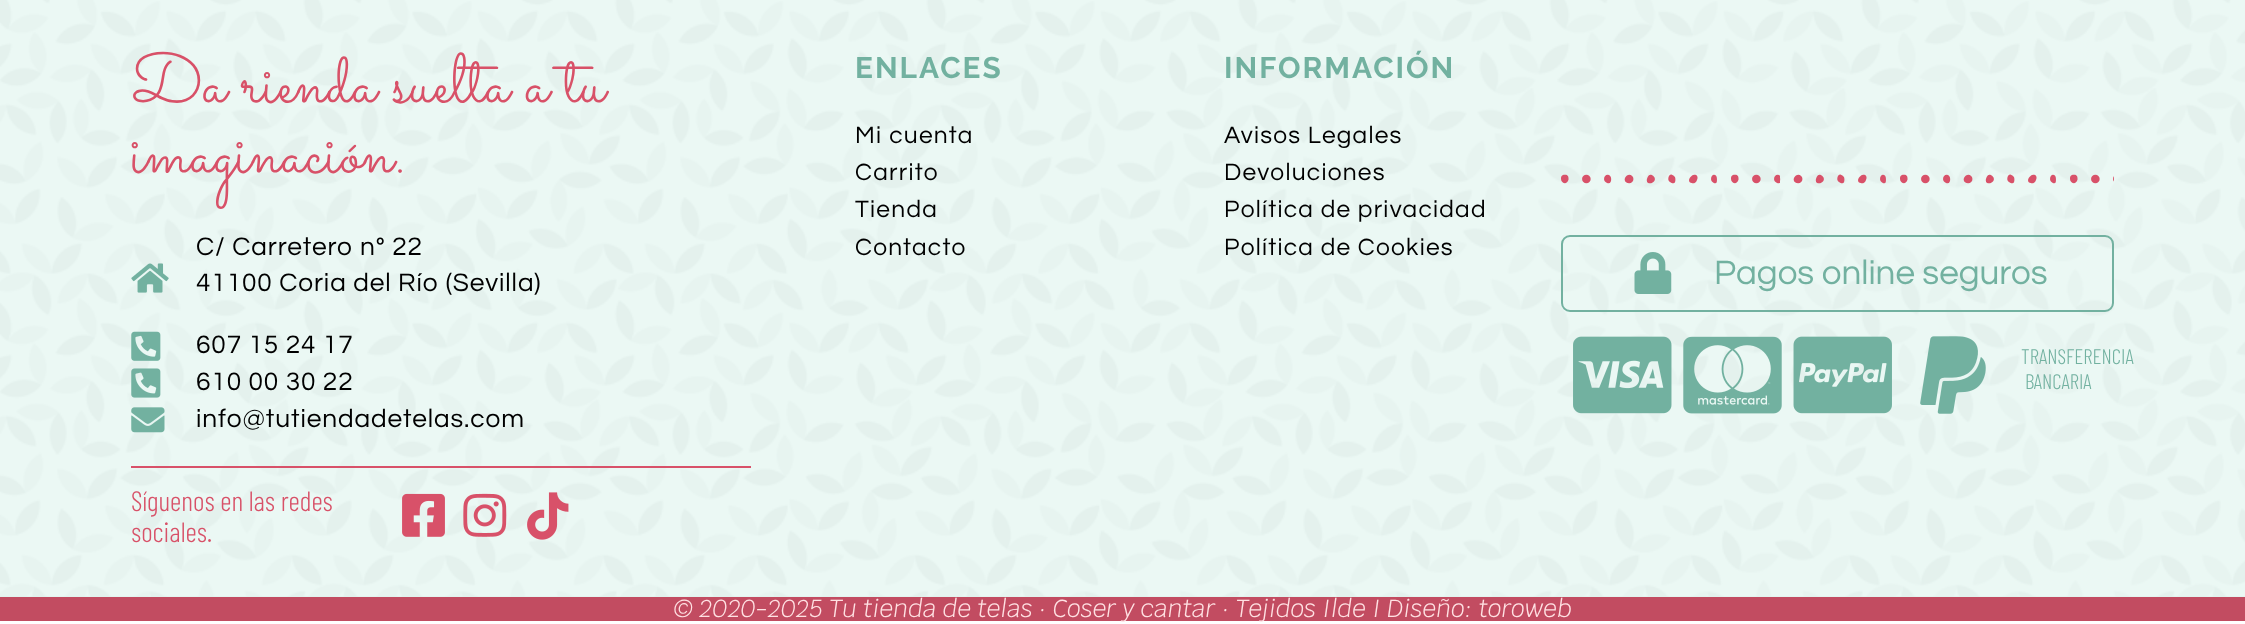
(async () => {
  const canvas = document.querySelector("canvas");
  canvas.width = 2245;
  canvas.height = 624;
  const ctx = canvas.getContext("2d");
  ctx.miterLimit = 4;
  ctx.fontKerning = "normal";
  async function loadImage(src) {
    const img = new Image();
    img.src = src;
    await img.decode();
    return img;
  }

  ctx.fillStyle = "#ffffff";
  ctx.fillRect(0, 0, 2245, 624);
  ctx.fillStyle = "#def3ed";
  ctx.fillRect(0, 0, 2245, 597);
  ctx.drawImage(await loadImage("img/1.png"), 0, 0, 2245, 597);
  ctx.drawImage(await loadImage("img/2.png"), 131, 263, 38, 30);
  ctx.drawImage(await loadImage("img/3.png"), 131, 331, 30, 30);
  ctx.drawImage(await loadImage("img/4.png"), 131, 368, 30, 30);
  ctx.drawImage(await loadImage("img/5.png"), 131, 407, 34, 26);
  ctx.fillStyle = "#d85169";
  ctx.fillRect(131, 466, 620, 2);
  ctx.drawImage(await loadImage("img/6.png"), 402, 493, 43, 44);
  ctx.drawImage(await loadImage("img/7.png"), 463, 493, 44, 44);
  ctx.drawImage(await loadImage("img/8.png"), 527, 492, 42, 48);
  ctx.drawImage(await loadImage("img/9.png"), 1561, 174, 553, 10);
  ctx.beginPath();
  ctx.roundRect(1562, 236, 551, 75, 8);
  ctx.strokeStyle = "#72b1a0";
  ctx.lineWidth = 2;
  ctx.stroke();
  ctx.drawImage(await loadImage("img/10.png"), 1634, 252, 38, 42);
  ctx.drawImage(await loadImage("img/11.png"), 1573, 336, 99, 78);
  ctx.drawImage(await loadImage("img/12.png"), 1683, 336, 99, 78);
  ctx.drawImage(await loadImage("img/13.png"), 1793, 336, 99, 78);
  ctx.drawImage(await loadImage("img/14.png"), 1920, 336, 66, 78);
  ctx.fillStyle = "#c24c61";
  ctx.fillRect(0, 597, 2245, 24);
  ctx.font = "70px Sacramento";
  ctx.fillStyle = "#d85168";
  ctx.fillText("Da rienda suelta a tu", 131, 102);
  ctx.fillText("imaginación.", 131, 172);
  ctx.letterSpacing = "0.9px";
  ctx.font = "26.25px Questrial";
  ctx.fillStyle = "#000000";
  for (const [text, x, y] of [
    ["C/ Carretero nº 22", 196, 255],
    ["41100 Coria del Río (Sevilla)", 196, 291],
    ["607 15 24 17", 196, 353],
    ["610 00 30 22", 196, 390],
    ["info@tutiendadetelas.com", 196, 427],
  ]) {
    ctx.fillText(text, x, y);
  }
  ctx.letterSpacing = "0px";
  ctx.font = "300 28px Barlow Condensed";
  ctx.fillStyle = "#d85168";
  ctx.fillText("Síguenos en las redes", 131, 511);
  ctx.fillText("sociales.", 131, 542);
  ctx.letterSpacing = "2px";
  ctx.font = "bold 29.75px Raleway";
  ctx.fillStyle = "#72b1a0";
  ctx.fillText("ENLACES", 855, 78);
  ctx.letterSpacing = "1.25px";
  ctx.font = "24.5px Questrial";
  ctx.fillStyle = "#000000";
  for (const [text, x, y] of [
    ["Mi cuenta", 855, 143],
    ["Carrito", 855, 180],
    ["Tienda", 855, 217],
    ["Contacto", 855, 255],
  ]) {
    ctx.fillText(text, x, y);
  }
  ctx.letterSpacing = "2px";
  ctx.font = "bold 29.75px Raleway";
  ctx.fillStyle = "#72b1a0";
  ctx.fillText("INFORMACIÓN", 1224, 78);
  ctx.letterSpacing = "1.25px";
  ctx.font = "24.5px Questrial";
  ctx.fillStyle = "#000000";
  for (const [text, x, y] of [
    ["Avisos Legales", 1224, 143],
    ["Devoluciones", 1224, 180],
    ["Política de privacidad", 1224, 217],
    ["Política de Cookies", 1224, 255],
  ]) {
    ctx.fillText(text, x, y);
  }
  ctx.letterSpacing = "0px";
  ctx.font = "35px Questrial";
  ctx.fillStyle = "#72b1a0";
  ctx.fillText("Pagos online seguros", 1714, 284);
  ctx.font = "300 21px Barlow Condensed";
  ctx.fillText("TRANSFERENCIA", 2021, 364);
  ctx.fillText("BANCARIA", 2025, 389);
  ctx.font = "italic 300 24.5px Krub";
  ctx.fillStyle = "#ffe1e3";
  ctx.fillText("© 2020-2025 Tu tienda de telas · Coser y cantar · Tejidos Ilde I Diseño: toroweb", 674, 617);
})();
